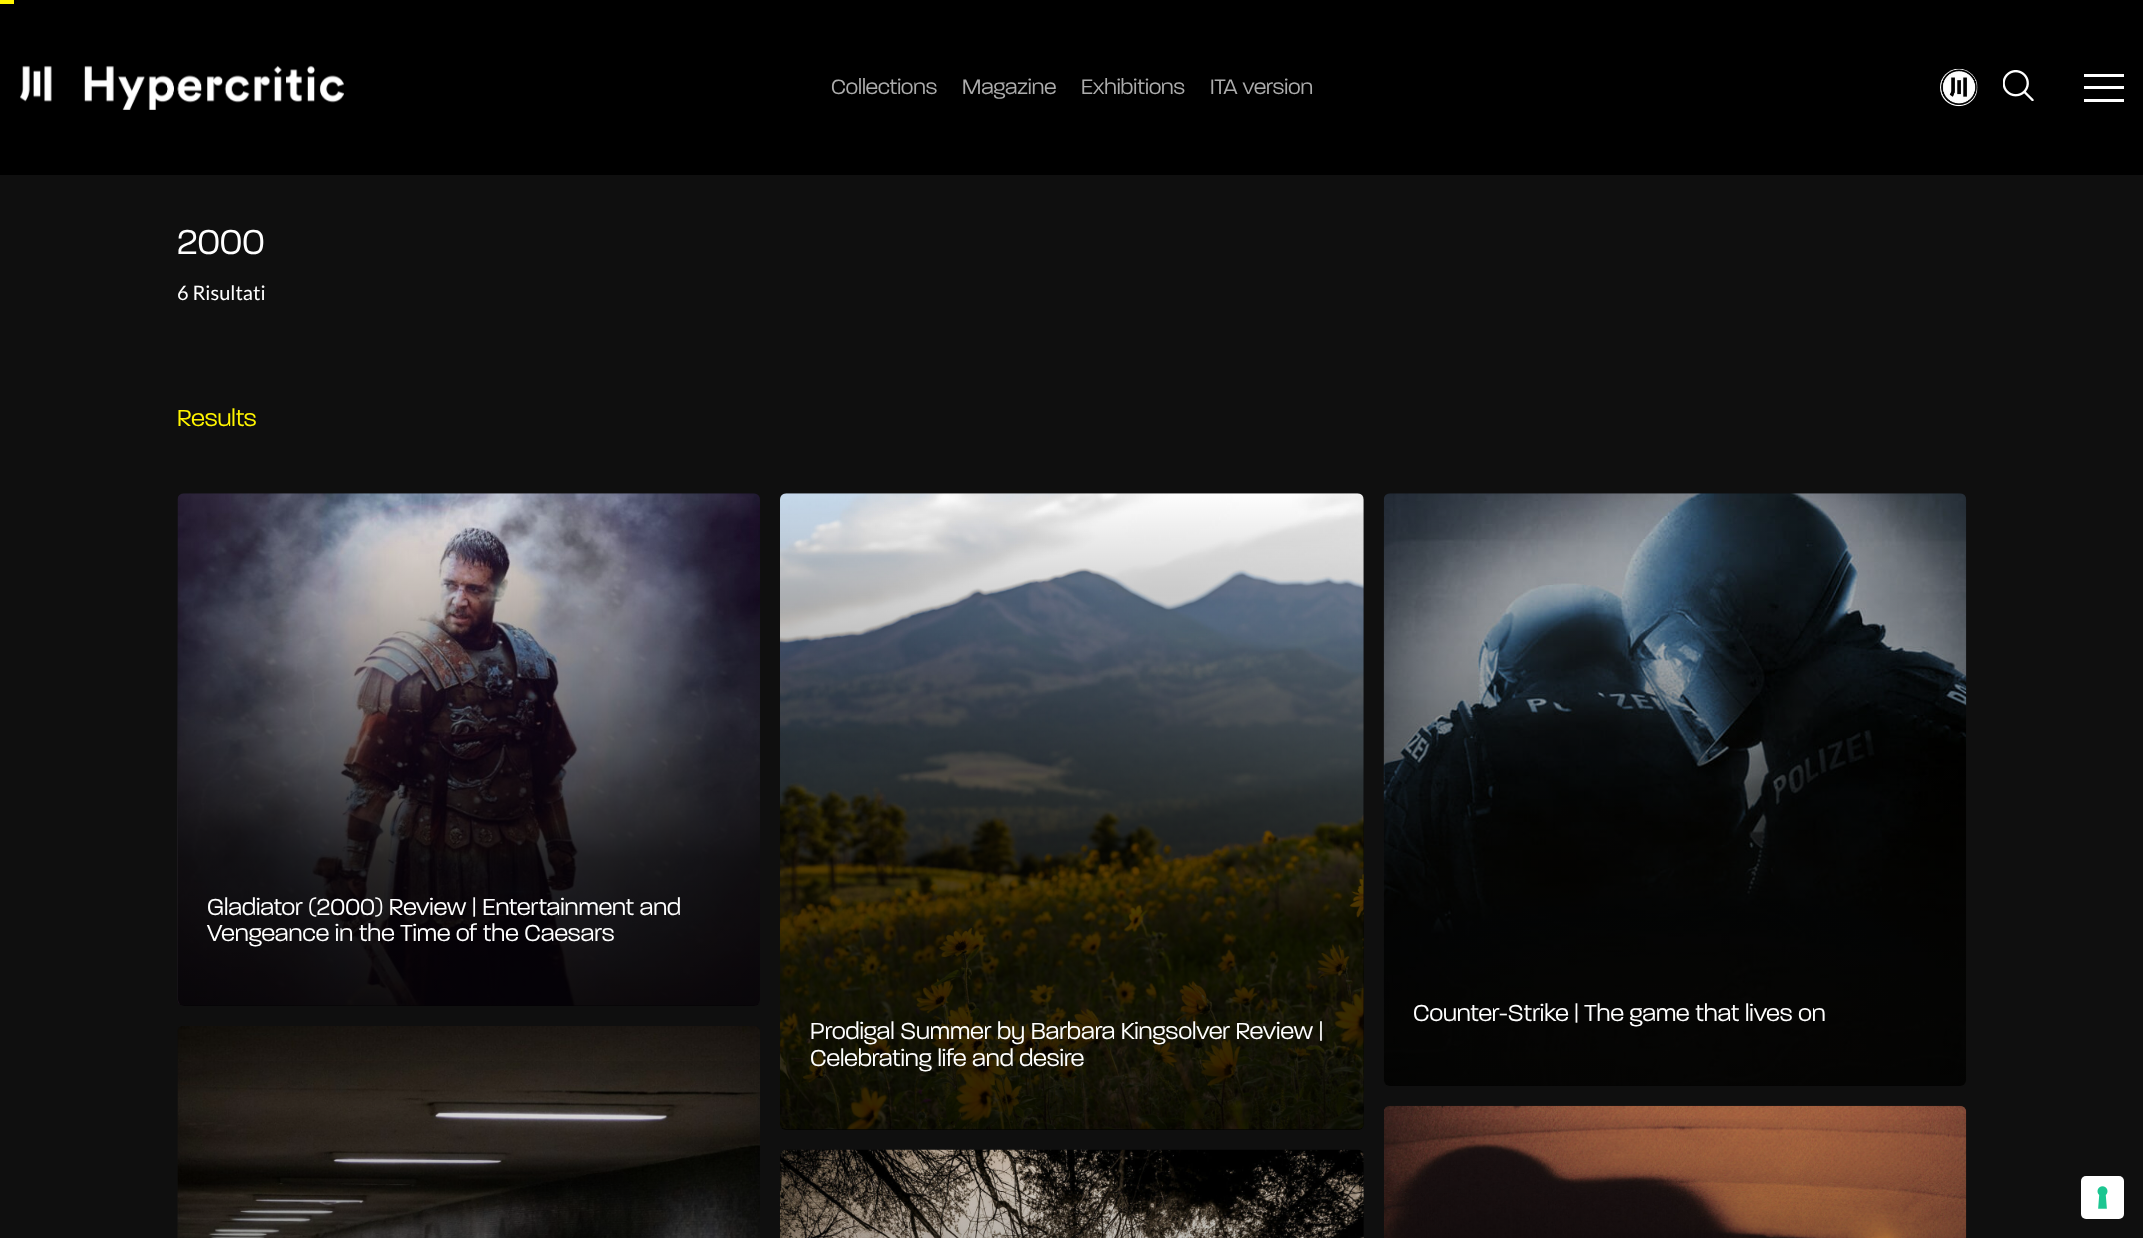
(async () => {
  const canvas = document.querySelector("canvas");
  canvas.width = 2143;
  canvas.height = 1238;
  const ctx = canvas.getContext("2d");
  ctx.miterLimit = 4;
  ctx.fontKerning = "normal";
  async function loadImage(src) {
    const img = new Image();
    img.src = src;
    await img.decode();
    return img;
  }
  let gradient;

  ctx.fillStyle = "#0f0f0f";
  ctx.fillRect(0, 0, 2143, 1238);
  ctx.fillStyle = "#000000";
  ctx.fillRect(0, 0, 2143, 175);
  ctx.fillStyle = "#fff500";
  ctx.fillRect(0, 0, 14, 4);
  ctx.drawImage(await loadImage("img/1.png"), 20, 65, 324, 45);
  ctx.drawImage(await loadImage("img/2.png"), 1940, 68, 38, 39);
  ctx.drawImage(await loadImage("img/3.png"), 2003, 70, 31, 31);
  for (const [x, y, w, h, color] of [
    [2084, 86, 40, 3, "#ffffff"],
    [2084, 74, 40, 3, "#ffffff"],
    [2084, 99, 40, 3, "#ffffff"],
  ]) {
    ctx.fillStyle = color;
    ctx.fillRect(x, y, w, h);
  }
  ctx.drawImage(await loadImage("img/4.png"), 177, 493, 583, 513);
  gradient = ctx.createLinearGradient(469, 494, 469, 1006);
  gradient.addColorStop(0, "rgba(0, 0, 0, 0)");
  gradient.addColorStop(0.71, "rgba(0, 0, 0, 0.77)");
  gradient.addColorStop(1, "rgba(0, 0, 0, 0.8)");
  ctx.fillStyle = gradient;
  ctx.beginPath();
  ctx.roundRect(178, 494, 582, 512, 6);
  ctx.fill();
  ctx.drawImage(await loadImage("img/5.png"), 1383, 493, 584, 593);
  gradient = ctx.createLinearGradient(1675, 494, 1675, 1086);
  gradient.addColorStop(0, "rgba(0, 0, 0, 0)");
  gradient.addColorStop(0.71, "rgba(0, 0, 0, 0.77)");
  gradient.addColorStop(1, "rgba(0, 0, 0, 0.8)");
  ctx.fillStyle = gradient;
  ctx.beginPath();
  ctx.roundRect(1384, 494, 582, 592, 6);
  ctx.fill();
  ctx.drawImage(await loadImage("img/6.png"), 177, 1026, 583, 212);
  gradient = ctx.createLinearGradient(469, 1026, 469, 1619);
  gradient.addColorStop(0, "rgba(0, 0, 0, 0)");
  gradient.addColorStop(0.71, "rgba(0, 0, 0, 0.77)");
  gradient.addColorStop(1, "rgba(0, 0, 0, 0.8)");
  ctx.fillStyle = gradient;
  ctx.fillRect(178, 1061, 582, 177);
  ctx.drawImage(await loadImage("img/7.png"), 780, 493, 584, 637);
  gradient = ctx.createLinearGradient(1072, 494, 1072, 1130);
  gradient.addColorStop(0, "rgba(0, 0, 0, 0)");
  gradient.addColorStop(0.71, "rgba(0, 0, 0, 0.77)");
  gradient.addColorStop(1, "rgba(0, 0, 0, 0.8)");
  ctx.fillStyle = gradient;
  ctx.beginPath();
  ctx.roundRect(780, 494, 584, 636, 6);
  ctx.fill();
  ctx.drawImage(await loadImage("img/8.png"), 1384, 1105, 583, 133);
  gradient = ctx.createLinearGradient(1675, 1106, 1675, 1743);
  gradient.addColorStop(0, "rgba(0, 0, 0, 0)");
  gradient.addColorStop(0.71, "rgba(0, 0, 0, 0.77)");
  gradient.addColorStop(1, "rgba(0, 0, 0, 0.8)");
  ctx.fillStyle = gradient;
  ctx.fillRect(1384, 1119, 582, 119);
  ctx.drawImage(await loadImage("img/9.png"), 780, 1149, 584, 89);
  gradient = ctx.createLinearGradient(1072, 1150, 1072, 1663);
  gradient.addColorStop(0, "rgba(0, 0, 0, 0)");
  gradient.addColorStop(0.71, "rgba(0, 0, 0, 0.77)");
  gradient.addColorStop(1, "rgba(0, 0, 0, 0.8)");
  ctx.fillStyle = gradient;
  ctx.fillRect(780, 1160, 584, 78);
  ctx.fillStyle = "#ffffff";
  ctx.beginPath();
  ctx.roundRect(2081, 1176, 43, 43, 5);
  ctx.fill();
  ctx.drawImage(await loadImage("img/10.png"), 2097, 1186, 11, 23);
  ctx.font = "300 22.5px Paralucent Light";
  ctx.fillStyle = "#acacac";
  for (const [text, x, y] of [
    ["Collections", 831, 94],
    ["Magazine", 962, 94],
    ["Exhibitions", 1081, 94],
    ["ITA version", 1210, 94],
  ]) {
    ctx.fillText(text, x, y);
  }
  ctx.font = "300 37.5px Paralucent Light";
  ctx.fillStyle = "#ffffff";
  ctx.fillText("2000", 177, 254);
  ctx.font = "20px Lato";
  ctx.fillText("6 Risultati", 177, 300);
  ctx.font = "300 25px Paralucent Light";
  ctx.fillStyle = "#fff500";
  ctx.fillText("Results", 177, 426);
  ctx.fillStyle = "#ffffff";
  for (const [text, x, y] of [
    ["Gladiator (2000) Review | Entertainment and", 207, 915],
    ["Vengeance in the Time of the Caesars", 207, 941],
    ["Counter-Strike | The game that lives on", 1413, 1021],
    ["Prodigal Summer by Barbara Kingsolver Review |", 810, 1039],
    ["Celebrating life and desire", 810, 1066],
  ]) {
    ctx.fillText(text, x, y);
  }
})();
